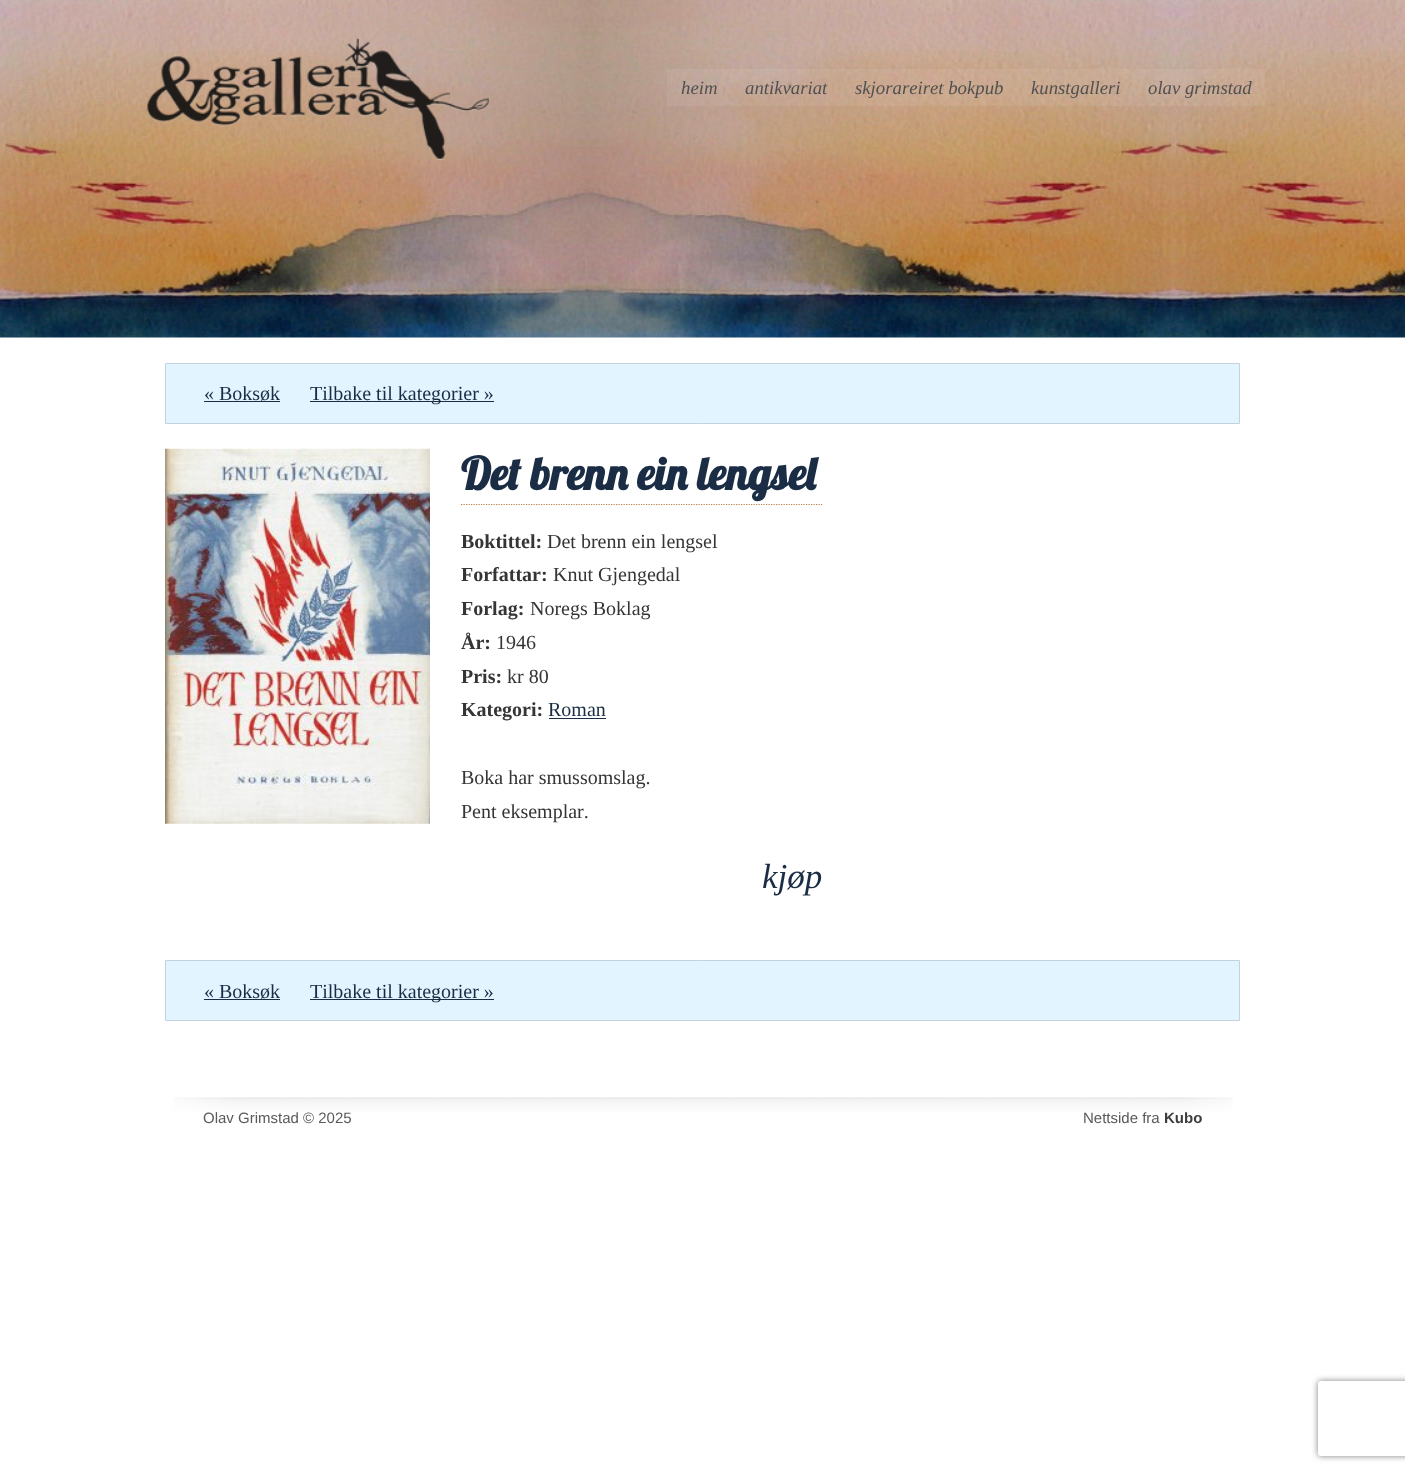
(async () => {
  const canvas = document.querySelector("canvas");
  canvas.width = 1405;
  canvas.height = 1473;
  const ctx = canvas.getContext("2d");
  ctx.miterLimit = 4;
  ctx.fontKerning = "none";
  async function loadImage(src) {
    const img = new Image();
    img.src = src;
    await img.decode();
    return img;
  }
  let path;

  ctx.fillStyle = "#ffffff";
  ctx.fillRect(0, 0, 1405, 1473);
  ctx.drawImage(await loadImage("img/1.png"), 0, 0, 1405, 338);
  ctx.drawImage(await loadImage("img/2.png"), 147, 38, 342, 122);
  ctx.fillStyle = "rgba(255, 255, 255, 0.07)";
  ctx.fillRect(667, 69, 598, 37);
  ctx.fillStyle = "#e1f4ff";
  ctx.beginPath();
  ctx.rect(165.5, 363.5, 1074, 60);
  ctx.fill();
  ctx.strokeStyle = "#c2d3dc";
  ctx.stroke();
  ctx.fillStyle = "#1a2d44";
  ctx.fillRect(204, 401, 76, 1);
  ctx.fillRect(310, 401, 184, 1);
  ctx.drawImage(await loadImage("img/3.png"), 165, 448, 265, 376);
  path = new Path2D("M461 504.5H822.5");
  ctx.strokeStyle = "#bb8347";
  ctx.lineWidth = 1.2;
  ctx.setLineDash([1.25, 1.25]);
  ctx.stroke(path);
  ctx.fillRect(549, 718, 57, 1);
  ctx.fillStyle = "#e1f4ff";
  ctx.beginPath();
  ctx.rect(165.5, 960.5, 1074, 60);
  ctx.fill();
  ctx.strokeStyle = "#c2d3dc";
  ctx.lineWidth = 1;
  ctx.setLineDash([]);
  ctx.stroke();
  ctx.fillStyle = "#1a2d44";
  ctx.fillRect(204, 999, 76, 1);
  ctx.fillRect(310, 999, 184, 1);
  ctx.drawImage(await loadImage("img/4.png"), 173, 1097, 1060, 15);
  ctx.save();
  path = new Path2D("M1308 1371H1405V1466H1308ZM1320.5 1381H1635.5C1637 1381 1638 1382 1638 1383.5V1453.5C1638 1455 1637 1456 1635.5 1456H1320.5C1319 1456 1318 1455 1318 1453.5V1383.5C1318 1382 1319 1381 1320.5 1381Z");
  ctx.clip(path, "evenodd");
  ctx.fillStyle = "#808080";
  ctx.filter = "blur(3px)";
  ctx.beginPath();
  ctx.roundRect(1318, 1381, 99, 75, 2.5);
  ctx.fill();
  ctx.filter = "none";
  ctx.restore();
  ctx.font = "italic 18.75px Liberation Serif";
  ctx.fillStyle = "#505050";
  for (const [text, x, y] of [
    ["heim", 681, 94],
    ["antikvariat", 745, 94],
    ["skjorareiret bokpub", 855, 94],
    ["kunstgalleri", 1031, 94],
    ["olav grimstad", 1148, 94],
  ]) {
    ctx.fillText(text, x, y);
  }
  ctx.font = "20px Liberation Serif";
  ctx.fillStyle = "#1a2d44";
  ctx.fillText("« Boksøk", 204, 400);
  ctx.fillText("Tilbake til kategorier »", 310, 400);
  ctx.font = "bold 45px Lobster";
  ctx.fillText("Det brenn ein lengsel", 461, 490);
  ctx.font = "bold 20px Liberation Serif";
  ctx.fillStyle = "#353535";
  ctx.fillText("Boktittel:", 461, 548);
  ctx.font = "20px Liberation Serif";
  ctx.fillText("Det brenn ein lengsel", 547, 548);
  ctx.font = "bold 20px Liberation Serif";
  ctx.fillText("Forfattar:", 461, 581);
  ctx.font = "20px Liberation Serif";
  ctx.fillText("Knut Gjengedal", 553, 581);
  ctx.font = "bold 20px Liberation Serif";
  ctx.fillText("Forlag:", 461, 615);
  ctx.font = "20px Liberation Serif";
  ctx.fillText("Noregs Boklag", 530, 615);
  ctx.font = "bold 20px Liberation Serif";
  ctx.fillText("År:", 461, 649);
  ctx.font = "20px Liberation Serif";
  ctx.fillText("1946", 496, 649);
  ctx.font = "bold 20px Liberation Serif";
  ctx.fillText("Pris:", 461, 683);
  ctx.font = "20px Liberation Serif";
  ctx.fillText("kr 80", 507, 683);
  ctx.font = "bold 20px Liberation Serif";
  ctx.fillText("Kategori:", 461, 716);
  ctx.font = "20px Liberation Serif";
  ctx.fillStyle = "#1a2d44";
  ctx.fillText("Roman", 548, 716);
  ctx.fillStyle = "#353535";
  ctx.fillText("Boka har smussomslag.", 461, 784);
  ctx.fillText("Pent eksemplar.", 461, 818);
  ctx.font = "italic 35px Liberation Serif";
  ctx.fillStyle = "#1a2d44";
  ctx.fillText("kjøp", 762, 888);
  ctx.font = "20px Liberation Serif";
  ctx.fillText("« Boksøk", 204, 998);
  ctx.fillText("Tilbake til kategorier »", 310, 998);
  ctx.font = "15px Liberation Sans";
  ctx.fillStyle = "#595959";
  ctx.fillText("Olav Grimstad © 2025", 203, 1123);
  ctx.fillText("Nettside fra", 1083, 1123);
  ctx.font = "bold 15px Liberation Sans";
  ctx.fillStyle = "#3d3d3d";
  ctx.fillText("Kubo", 1164, 1123);
})();
